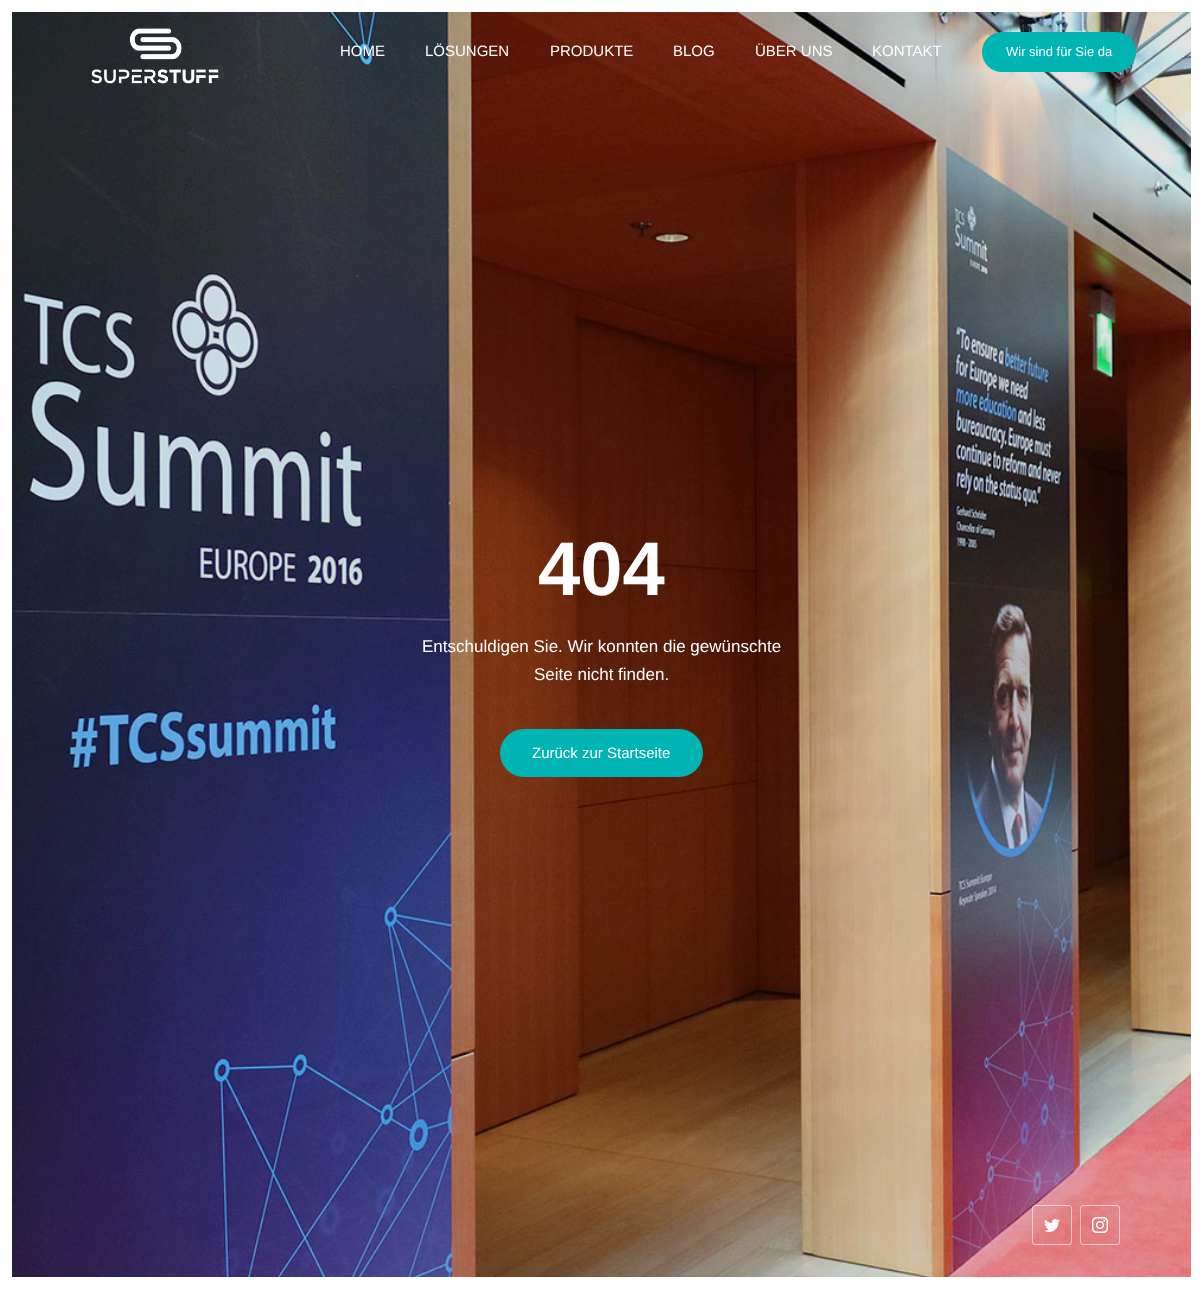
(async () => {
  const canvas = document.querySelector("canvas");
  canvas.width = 1203;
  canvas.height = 1289;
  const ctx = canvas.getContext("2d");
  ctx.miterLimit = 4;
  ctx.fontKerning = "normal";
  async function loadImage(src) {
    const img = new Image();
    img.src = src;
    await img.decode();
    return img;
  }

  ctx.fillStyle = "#ffffff";
  ctx.fillRect(0, 0, 1203, 1289);
  ctx.drawImage(await loadImage("img/1.png"), 12, 12, 1179, 1265);
  ctx.drawImage(await loadImage("img/2.png"), 91, 28, 128, 56);
  ctx.fillStyle = "#00b4b4";
  ctx.beginPath();
  ctx.roundRect(982, 32, 154, 40, 20);
  ctx.fill();
  ctx.beginPath();
  ctx.roundRect(500, 729, 203, 48, 24);
  ctx.fill();
  ctx.beginPath();
  ctx.roundRect(1032.5, 1205.5, 39, 39, 2.5);
  ctx.strokeStyle = "rgba(255, 255, 255, 0.6)";
  ctx.stroke();
  ctx.drawImage(await loadImage("img/3.png"), 1044, 1219, 16, 13);
  ctx.beginPath();
  ctx.roundRect(1080.5, 1205.5, 39, 39, 2.5);
  ctx.stroke();
  ctx.drawImage(await loadImage("img/4.png"), 1092, 1217, 16, 16);
  ctx.font = "15px Liberation Sans";
  ctx.fillStyle = "#ffffff";
  for (const [text, x, y] of [
    ["HOME", 340, 56],
    ["LÖSUNGEN", 425, 56],
    ["PRODUKTE", 550, 56],
    ["BLOG", 673, 56],
    ["ÜBER UNS", 755, 56],
    ["KONTAKT", 872, 56],
  ]) {
    ctx.fillText(text, x, y);
  }
  ctx.font = "13px Liberation Sans";
  ctx.fillText("Wir sind für Sie da", 1006, 56);
  ctx.font = "bold 76px Liberation Sans";
  ctx.fillText("404", 538, 595);
  ctx.font = "17px Liberation Sans";
  ctx.fillText("Entschuldigen Sie. Wir konnten die gewünschte", 422, 652);
  ctx.fillText("Seite nicht finden.", 534, 680);
  ctx.font = "15px Liberation Sans";
  ctx.fillText("Zurück zur Startseite", 532, 758);
})();
